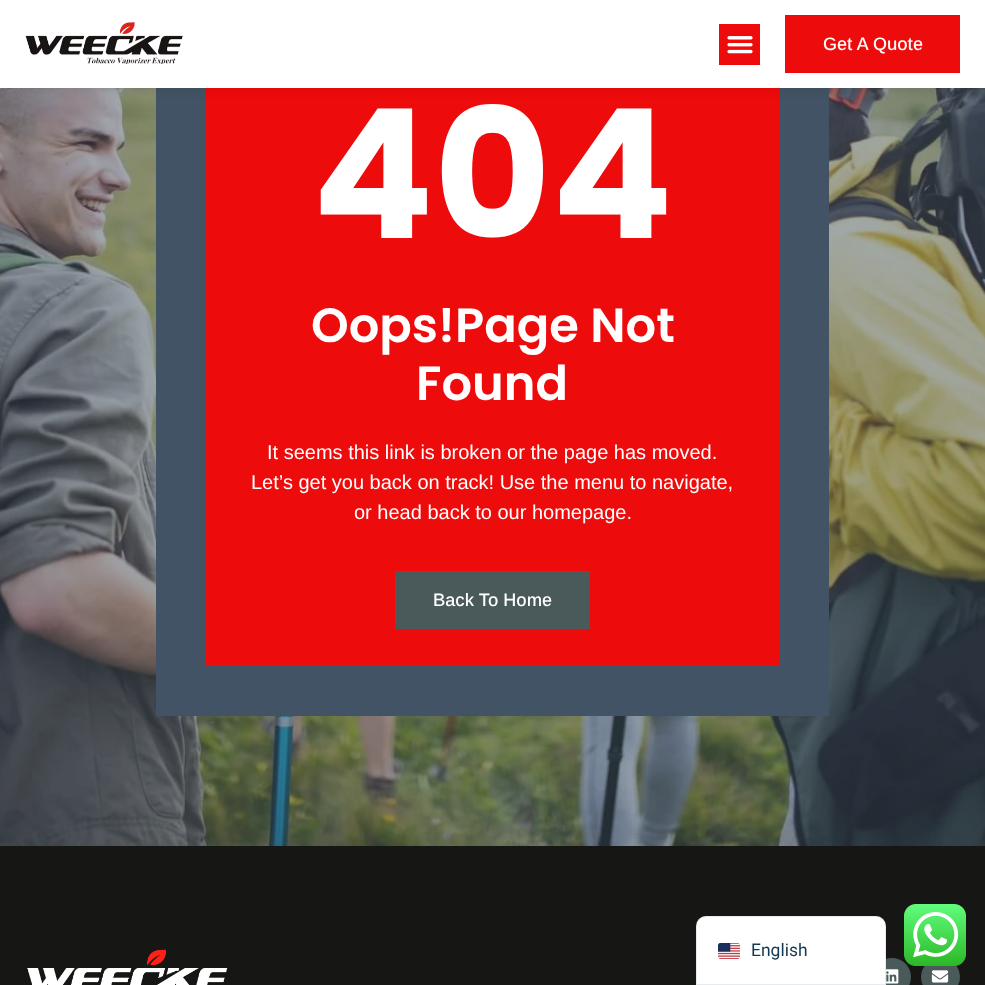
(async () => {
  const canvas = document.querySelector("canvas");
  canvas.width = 985;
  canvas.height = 985;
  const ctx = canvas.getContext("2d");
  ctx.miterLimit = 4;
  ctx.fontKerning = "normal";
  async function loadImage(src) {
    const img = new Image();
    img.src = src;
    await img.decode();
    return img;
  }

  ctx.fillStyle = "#ffffff";
  ctx.fillRect(0, 0, 985, 985);
  ctx.drawImage(await loadImage("img/3.png"), 0, 88, 985, 758);
  ctx.fillStyle = "#425365";
  ctx.fillRect(156, 88, 673, 628);
  ctx.fillStyle = "#ee0b0b";
  ctx.fillRect(206, 88, 573, 578);
  ctx.fillStyle = "rgba(0, 0, 0, 0.1)";
  ctx.filter = "blur(6px)";
  ctx.beginPath();
  ctx.rect(0, 0, 985, 88);
  ctx.fill();
  ctx.filter = "none";
  ctx.fillStyle = "#ffffff";
  ctx.fillRect(0, 0, 985, 88);
  ctx.drawImage(await loadImage("img/1.png"), 25, 22, 158, 43);
  ctx.fillStyle = "#ee0b0b";
  ctx.fillRect(719, 24, 41, 41);
  ctx.drawImage(await loadImage("img/2.png"), 727, 36, 26, 18);
  for (const [x, y, w, h, color] of [
    [785, 15, 175, 58, "#ee0b0b"],
    [395, 571, 195, 58, "#4a595a"],
    [0, 846, 985, 139, "#161614"],
  ]) {
    ctx.fillStyle = color;
    ctx.fillRect(x, y, w, h);
  }
  ctx.drawImage(await loadImage("img/4.png"), 27, 949, 201, 36);
  ctx.fillStyle = "#4a595a";
  ctx.beginPath();
  ctx.arc(892, 977, 19, 0, Math.PI * 2);
  ctx.fill();
  ctx.drawImage(await loadImage("img/5.png"), 886, 969, 13, 15);
  ctx.beginPath();
  ctx.roundRect(921, 958, 39, 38, 19);
  ctx.fill();
  ctx.drawImage(await loadImage("img/6.png"), 931, 970, 18, 13);
  ctx.fillStyle = "#ffffff";
  ctx.beginPath();
  ctx.roundRect(696, 916, 190, 69, [10, 10, 0, 0]);
  ctx.fill();
  ctx.beginPath();
  ctx.roundRect(696.5, 916.5, 189, 68, [9.5, 9.5, 0, 0]);
  ctx.strokeStyle = "rgba(20, 56, 82, 0.1)";
  ctx.stroke();
  ctx.drawImage(await loadImage("img/7.png"), 718, 943, 22, 16);
  ctx.drawImage(await loadImage("img/8.png"), 904, 904, 62, 62);
  ctx.font = "500 18px Arimo";
  ctx.fillText("Get A Quote", 823, 50);
  ctx.font = "bold 180px Poppins";
  ctx.fillText("404", 312, 238);
  ctx.font = "600 48px Poppins";
  ctx.fillText("Oops!Page Not", 311, 342);
  ctx.fillText("Found", 416, 400);
  ctx.font = "20px Arimo";
  for (const [text, x, y] of [
    ["It seems this link is broken or the page has moved.", 267, 459],
    ["Let’s get you back on track! Use the menu to navigate,", 251, 489],
    ["or head back to our homepage.", 354, 519],
  ]) {
    ctx.fillText(text, x, y);
  }
  ctx.font = "500 18px Arimo";
  ctx.fillText("Back To Home", 433, 606);
  ctx.font = "17.5px Roboto";
  ctx.fillStyle = "#143852";
  ctx.fillText("English", 751, 956);
})();
